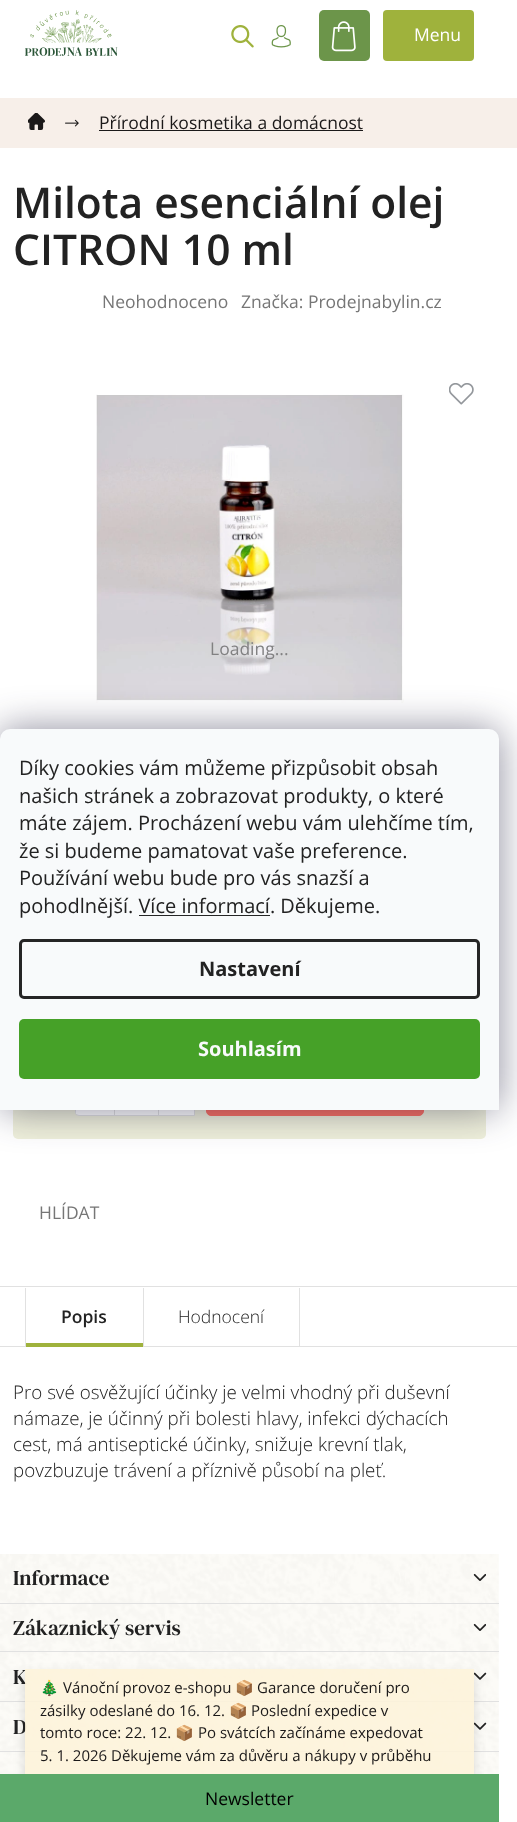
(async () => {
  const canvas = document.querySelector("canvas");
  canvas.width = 517;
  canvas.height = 1822;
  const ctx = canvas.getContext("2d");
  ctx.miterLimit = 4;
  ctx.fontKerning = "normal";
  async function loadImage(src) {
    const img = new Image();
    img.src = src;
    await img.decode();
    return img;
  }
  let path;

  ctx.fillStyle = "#ffffff";
  ctx.fillRect(0, 0, 517, 1822);
  ctx.drawImage(await loadImage("img/1.png"), 25, 10, 93, 46);
  ctx.drawImage(await loadImage("img/2.png"), 231, 25, 23, 23);
  ctx.drawImage(await loadImage("img/3.png"), 271, 25, 20, 23);
  ctx.fillStyle = "#6c954a";
  ctx.beginPath();
  ctx.roundRect(319, 10, 51, 51, 5);
  ctx.fill();
  ctx.drawImage(await loadImage("img/4.png"), 331, 21, 25, 31);
  ctx.fillStyle = "#9fb23c";
  ctx.beginPath();
  ctx.roundRect(383, 10, 91, 51, 4);
  ctx.fill();
  ctx.fillStyle = "#f7efe9";
  ctx.fillRect(0, 98, 474, 50);
  ctx.drawImage(await loadImage("img/5.png"), 28, 113, 17, 17);
  ctx.drawImage(await loadImage("img/6.png"), 65, 119, 14, 8);
  ctx.fillStyle = "#1b1919";
  ctx.fillRect(99, 130, 264, 1);
  ctx.fillStyle = "#f7efe9";
  path = new Path2D("M26 148H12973V98H474V148Z");
  ctx.fill(path);
  ctx.drawImage(await loadImage("img/7.png"), 449, 383, 25, 22);
  ctx.drawImage(await loadImage("img/8.png"), 96, 394, 308, 309);
  ctx.fillStyle = "#eff0db";
  ctx.beginPath();
  ctx.roundRect(13, 955, 473, 184, 5);
  ctx.fill();
  ctx.fillStyle = "#ffffff";
  ctx.beginPath();
  ctx.roundRect(75.5, 1056.5, 119, 59, [3.5, 0, 0, 3.5]);
  ctx.fill();
  ctx.strokeStyle = "#e1e1e1";
  ctx.stroke();
  for (const [x, y, w, h, color] of [
    [76, 1112, 1, 2, "#ffffff"],
    [158, 1110, 1, 5, "#e1e1e1"],
    [114, 1110, 1, 5, "#e1e1e1"],
  ]) {
    ctx.fillStyle = color;
    ctx.fillRect(x, y, w, h);
  }
  ctx.fillStyle = "#fc6f63";
  ctx.beginPath();
  ctx.roundRect(206.5, 1056.5, 217, 59, 4.5);
  ctx.fill();
  ctx.strokeStyle = "#fc6f63";
  ctx.stroke();
  ctx.fillStyle = "#e1e1e1";
  ctx.fillRect(0, 1286, 499, 1);
  ctx.fillRect(0, 1346, 499, 1);
  path = new Path2D("M1 1286H499V1287H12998V1286Z");
  ctx.fill(path);
  for (const [x, y, w, h, color] of [
    [143, 1288, 1, 58, "#e1e1e1"],
    [25, 1288, 1, 58, "#e1e1e1"],
    [26, 1343, 117, 4, "#9fb23c"],
    [299, 1288, 1, 58, "#e1e1e1"],
  ]) {
    ctx.fillStyle = color;
    ctx.fillRect(x, y, w, h);
  }
  path = new Path2D("M1 1346H499V1347H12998V1346Z");
  ctx.fill(path);
  ctx.drawImage(await loadImage("img/9.png"), 0, 1554, 499, 220);
  ctx.fillRect(0, 1603, 499, 1);
  ctx.drawImage(await loadImage("img/10.png"), 473, 1573, 13, 8);
  ctx.fillRect(0, 1651, 499, 1);
  ctx.drawImage(await loadImage("img/11.png"), 473, 1623, 13, 8);
  ctx.fillRect(0, 1701, 499, 1);
  ctx.drawImage(await loadImage("img/12.png"), 473, 1672, 14, 8);
  ctx.fillRect(0, 1751, 499, 1);
  ctx.drawImage(await loadImage("img/13.png"), 473, 1722, 14, 8);
  ctx.save();
  path = new Path2D("M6 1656H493V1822H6ZM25 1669H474V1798H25Z");
  ctx.clip(path, "evenodd");
  ctx.fillStyle = "rgba(0, 0, 0, 0.14)";
  ctx.filter = "blur(6px)";
  ctx.beginPath();
  ctx.rect(25, 1675, 449, 129);
  ctx.fill();
  ctx.filter = "none";
  ctx.restore();
  ctx.fillStyle = "rgba(27, 25, 57, 0.5)";
  ctx.filter = "blur(19px)";
  ctx.beginPath();
  ctx.roundRect(0, 729, 499, 381, 10);
  ctx.fill();
  ctx.filter = "none";
  ctx.fillStyle = "#f8fafb";
  ctx.beginPath();
  ctx.roundRect(0, 729, 499, 381, [10, 10, 0, 0]);
  ctx.fill();
  ctx.beginPath();
  ctx.roundRect(20.5, 940.5, 458, 57, 3.5);
  ctx.strokeStyle = "#252525";
  ctx.lineWidth = 3;
  ctx.stroke();
  ctx.fillStyle = "#46a128";
  ctx.beginPath();
  ctx.roundRect(19, 1019, 461, 60, 5);
  ctx.fill();
  ctx.fillStyle = "#5ba96a";
  ctx.fillRect(0, 1774, 499, 48);
  ctx.font = "17.5px Open Sans";
  ctx.fillStyle = "#ffffff";
  ctx.fillText("Menu", 414, 41);
  ctx.fillStyle = "#1b1919";
  ctx.fillText("Přírodní kosmetika a domácnost", 99, 129);
  ctx.font = "600 42.5px Open Sans";
  ctx.fillStyle = "#222222";
  ctx.fillText("Milota esenciální olej", 13, 218);
  ctx.fillText("CITRON 10 ml", 13, 265);
  ctx.font = "17.5px Open Sans";
  ctx.fillStyle = "#767676";
  ctx.fillText("Neohodnoceno", 102, 308);
  ctx.fillText("Značka: Prodejnabylin.cz", 241, 308);
  ctx.fillStyle = "#818182";
  ctx.fillText("Loading...", 210, 655);
  ctx.fillStyle = "#767676";
  ctx.fillText("HLÍDAT", 39, 1219);
  ctx.font = "600 17.5px Open Sans";
  ctx.fillStyle = "#222222";
  ctx.fillText("Popis", 61, 1323);
  ctx.font = "300 17.5px Open Sans";
  ctx.fillText("Hodnocení", 178, 1323);
  ctx.font = "300 18.75px Open Sans";
  for (const [text, x, y] of [
    ["Pro své osvěžující účinky je velmi vhodný při duševní", 13, 1399],
    ["námaze, je účinný při bolesti hlavy, infekci dýchacích", 13, 1425],
    ["cest, má antiseptické účinky, snižuje krevní tlak,", 13, 1451],
    ["povzbuzuje trávení a příznivě působí na pleť.", 13, 1477],
  ]) {
    ctx.fillText(text, x, y);
  }
  ctx.font = "21.25px DM Serif Text";
  ctx.fillText("Informace", 13, 1585);
  ctx.save();
  ctx.beginPath();
  ctx.rect(13, 1616, 473, 23);
  ctx.clip();
  ctx.fillText("Zákaznický servis", 13, 1635);
  ctx.restore();
  ctx.fillText("K", 13, 1684);
  ctx.fillText("D", 13, 1734);
  ctx.fillStyle = "rgba(253, 243, 218, 0.9)";
  ctx.fillRect(25, 1669, 449, 105);
  ctx.font = "15px Noto Color Emoji";
  ctx.fillStyle = "#1b1919";
  ctx.fillText("🎄", 40, 1693);
  ctx.font = "15px Open Sans";
  ctx.fillText("Vánoční provoz e-shopu", 63, 1693);
  ctx.font = "15px Noto Color Emoji";
  ctx.fillText("📦", 235, 1693);
  ctx.font = "15px Open Sans";
  ctx.fillText("Garance doručení pro", 257, 1693);
  ctx.fillText("zásilky odeslané do 16. 12.", 40, 1716);
  ctx.font = "15px Noto Color Emoji";
  ctx.fillText("📦", 229, 1716);
  ctx.font = "15px Open Sans";
  ctx.fillText("Poslední expedice v", 251, 1716);
  ctx.fillText("tomto roce: 22. 12.", 40, 1738);
  ctx.font = "15px Noto Color Emoji";
  ctx.fillText("📦", 175, 1738);
  ctx.font = "15px Open Sans";
  ctx.fillText("Po svátcích začínáme expedovat", 198, 1738);
  ctx.fillText("5. 1. 2026 Děkujeme vám za důvěru a nákupy v průběhu", 40, 1761);
  ctx.font = "20px Open Sans";
  ctx.fillStyle = "#222222";
  for (const [text, x, y] of [
    ["Díky cookies vám můžeme přizpůsobit obsah", 19, 775],
    ["našich stránek a zobrazovat produkty, o které", 19, 803],
    ["máte zájem. Procházení webu vám ulehčíme tím,", 19, 830],
    ["že si budeme pamatovat vaše preference.", 19, 858],
    ["Používání webu bude pro vás snazší a", 19, 885],
    ["pohodlnější. Více informací. Děkujeme.", 19, 913],
  ]) {
    ctx.fillText(text, x, y);
  }
  ctx.fillStyle = "#252525";
  ctx.fillRect(139, 915, 131, 1);
  ctx.font = "bold 20px Open Sans";
  ctx.fillStyle = "#222222";
  ctx.fillText("Nastavení", 199, 976);
  ctx.fillStyle = "#f8fafb";
  ctx.fillText("Souhlasím", 198, 1056);
  ctx.font = "17.5px Open Sans";
  ctx.fillStyle = "#000000";
  ctx.fillText("Newsletter", 205, 1805);
})();
